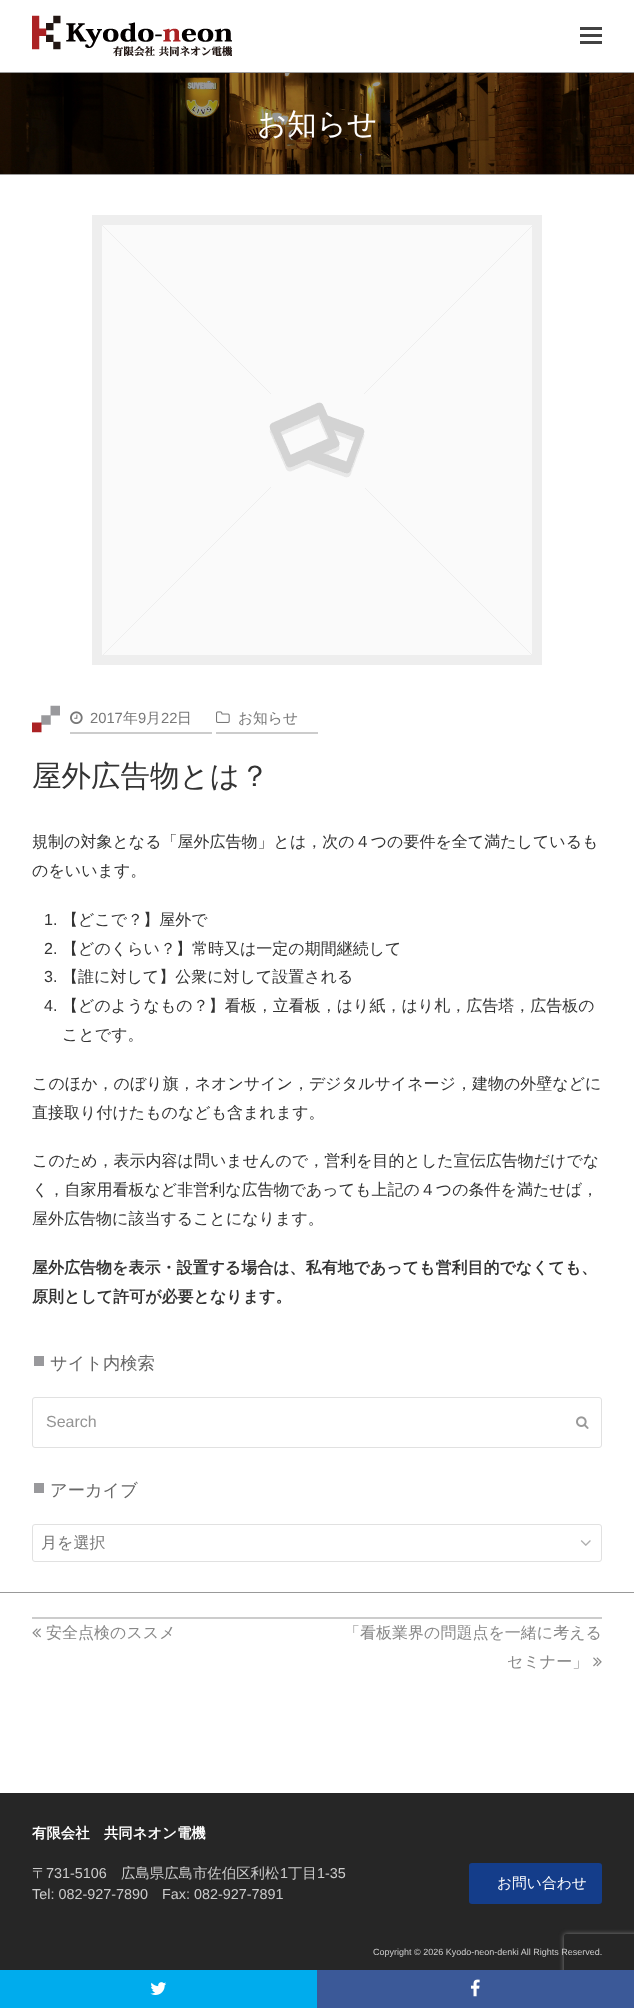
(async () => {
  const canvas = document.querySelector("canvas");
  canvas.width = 634;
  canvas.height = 2008;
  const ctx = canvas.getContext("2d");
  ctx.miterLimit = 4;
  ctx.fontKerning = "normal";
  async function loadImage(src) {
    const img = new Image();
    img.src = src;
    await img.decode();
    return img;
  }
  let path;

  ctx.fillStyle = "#ffffff";
  ctx.fillRect(0, 0, 634, 2008);
  ctx.drawImage(await loadImage("img/1.png"), 32, 15, 200, 42);
  for (const [x, y, w, h, color] of [
    [580, 34, 22, 3, "#424242"],
    [580, 27, 22, 3, "#424242"],
    [580, 41, 22, 3, "#424242"],
  ]) {
    ctx.fillStyle = color;
    ctx.fillRect(x, y, w, h);
  }
  ctx.drawImage(await loadImage("img/2.png"), 0, 73, 634, 101);
  ctx.fillStyle = "#999999";
  ctx.fillRect(0, 72, 634, 1);
  ctx.fillRect(0, 174, 634, 1);
  ctx.drawImage(await loadImage("img/3.png"), 92, 215, 450, 450);
  ctx.drawImage(await loadImage("img/4.png"), 32, 705, 28, 28);
  ctx.fillStyle = "#cccccc";
  ctx.fillRect(70, 732, 142, 2);
  ctx.drawImage(await loadImage("img/5.png"), 70, 711, 13, 13);
  ctx.fillRect(216, 732, 102, 2);
  ctx.drawImage(await loadImage("img/6.png"), 216, 711, 14, 12);
  ctx.fillStyle = "#00aced";
  ctx.fillRect(0, 1970, 317, 38);
  ctx.drawImage(await loadImage("img/7.png"), 150, 1982, 17, 13);
  ctx.fillStyle = "#262626";
  ctx.fillRect(0, 1793, 634, 177);
  ctx.save();
  path = new Path2D("M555 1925H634V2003H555ZM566 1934H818C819 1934 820 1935 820 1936V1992C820 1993 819 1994 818 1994H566C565 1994 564 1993 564 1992V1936C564 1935 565 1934 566 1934Z");
  ctx.clip(path, "evenodd");
  ctx.fillStyle = "#808080";
  ctx.filter = "blur(2.5px)";
  ctx.beginPath();
  ctx.roundRect(564, 1934, 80, 60, 2);
  ctx.fill();
  ctx.filter = "none";
  ctx.restore();
  ctx.fillStyle = "#3b5998";
  ctx.fillRect(317, 1970, 317, 38);
  ctx.drawImage(await loadImage("img/8.png"), 470, 1979, 10, 18);
  ctx.fillStyle = "#99999c";
  ctx.fillRect(34, 1356, 10, 10);
  ctx.beginPath();
  ctx.roundRect(32.5, 1397.5, 569, 50, 2.5);
  ctx.strokeStyle = "#e1e1e1";
  ctx.stroke();
  ctx.drawImage(await loadImage("img/9.png"), 576, 1416, 13, 13);
  ctx.fillRect(34, 1483, 10, 10);
  ctx.beginPath();
  ctx.roundRect(32.5, 1524.5, 569, 37, 2.5);
  ctx.stroke();
  ctx.drawImage(await loadImage("img/10.png"), 580, 1540, 11, 6);
  ctx.fillStyle = "#999999";
  ctx.fillRect(0, 1592, 634, 1);
  ctx.fillStyle = "#cccccc";
  ctx.fillRect(32, 1617, 570, 2);
  ctx.drawImage(await loadImage("img/11.png"), 32, 1628, 9, 10);
  ctx.drawImage(await loadImage("img/12.png"), 593, 1657, 9, 10);
  ctx.fillStyle = "#143d8a";
  ctx.beginPath();
  ctx.roundRect(469, 1863, 133, 41, 3);
  ctx.fill();
  ctx.font = "500 29.5px WenQuanYi Zen Hei";
  ctx.fillStyle = "#ffffff";
  ctx.fillText("お知らせ", 257, 134);
  ctx.font = "14.75px Liberation Sans";
  ctx.fillStyle = "#777777";
  ctx.fillText("2017", 90, 723);
  ctx.font = "500 14.75px WenQuanYi Zen Hei";
  ctx.fillText("年", 123, 723);
  ctx.font = "14.75px Liberation Sans";
  ctx.fillText("9", 138, 723);
  ctx.font = "500 14.75px WenQuanYi Zen Hei";
  ctx.fillText("月", 146, 723);
  ctx.font = "14.75px Liberation Sans";
  ctx.fillText("22", 161, 723);
  ctx.font = "500 14.75px WenQuanYi Zen Hei";
  ctx.fillText("日", 177, 723);
  ctx.fillText("お知らせ", 238, 723);
  ctx.font = "500 29.5px WenQuanYi Zen Hei";
  ctx.fillStyle = "#333333";
  ctx.fillText("屋外広告物とは？", 32, 786);
  ctx.font = "500 16px WenQuanYi Zen Hei";
  ctx.fillText("規制の対象となる「屋外広告物」とは，次の４つの要件を全て満たしているも", 32, 847);
  ctx.fillText("のをいいます。", 32, 876);
  ctx.font = "16px Liberation Sans";
  ctx.fillText("1.", 44, 925);
  ctx.font = "500 16px WenQuanYi Zen Hei";
  ctx.fillText("【どこで？】屋外で", 62, 925);
  ctx.font = "16px Liberation Sans";
  ctx.fillText("2.", 44, 954);
  ctx.font = "500 16px WenQuanYi Zen Hei";
  ctx.fillText("【どのくらい？】常時又は一定の期間継続して", 62, 954);
  ctx.font = "16px Liberation Sans";
  ctx.fillText("3.", 44, 982);
  ctx.font = "500 16px WenQuanYi Zen Hei";
  ctx.fillText("【誰に対して】公衆に対して設置される", 62, 982);
  ctx.font = "16px Liberation Sans";
  ctx.fillText("4.", 44, 1011);
  ctx.font = "500 16px WenQuanYi Zen Hei";
  for (const [text, x, y] of [
    ["【どのようなもの？】看板，立看板，はり紙，はり札，広告塔，広告板の", 62, 1011],
    ["ことです。", 62, 1040],
    ["このほか，のぼり旗，ネオンサイン，デジタルサイネージ，建物の外壁などに", 32, 1089],
    ["直接取り付けたものなども含まれます。", 32, 1118],
    ["このため，表示内容は問いませんので，営利を目的とした宣伝広告物だけでな", 32, 1166],
    ["く，自家用看板など非営利な広告物であっても上記の４つの条件を満たせば，", 32, 1195],
    ["屋外広告物に該当することになります。", 32, 1224],
  ]) {
    ctx.fillText(text, x, y);
  }
  ctx.font = "bold 16px WenQuanYi Zen Hei";
  ctx.fillText("屋外広告物を表示・設置する場合は、私有地であっても営利目的でなくても、", 32, 1273);
  ctx.fillText("原則として許可が必要となります。", 32, 1302);
  ctx.font = "500 17.25px WenQuanYi Zen Hei";
  ctx.fillStyle = "#666666";
  ctx.fillText("サイト内検索", 50, 1369);
  ctx.font = "16px Liberation Sans";
  ctx.fillStyle = "#949494";
  ctx.fillText("Search", 46, 1427);
  ctx.font = "500 17.25px WenQuanYi Zen Hei";
  ctx.fillStyle = "#666666";
  ctx.fillText("アーカイブ", 50, 1496);
  ctx.font = "500 16px WenQuanYi Zen Hei";
  ctx.fillStyle = "#777777";
  ctx.fillText("月を選択", 41, 1548);
  ctx.fillStyle = "#888888";
  for (const [text, x, y] of [
    ["安全点検のススメ", 46, 1638],
    ["「看板業界の問題点を一緒に考える", 344, 1638],
    ["セミナー」", 507, 1667],
  ]) {
    ctx.fillText(text, x, y);
  }
  ctx.font = "bold 14.4px WenQuanYi Zen Hei";
  ctx.fillStyle = "#ffffff";
  ctx.fillText("有限会社　共同ネオン電機", 32, 1838);
  ctx.font = "500 14.4px WenQuanYi Zen Hei";
  ctx.fillStyle = "#cccccc";
  ctx.fillText("〒", 32, 1878);
  ctx.font = "14.4px Liberation Sans";
  ctx.fillText("731-5106", 46, 1878);
  ctx.font = "500 14.4px WenQuanYi Zen Hei";
  ctx.fillText("広島県広島市佐伯区利松", 121, 1878);
  ctx.font = "14.4px Liberation Sans";
  ctx.fillText("1", 280, 1878);
  ctx.font = "500 14.4px WenQuanYi Zen Hei";
  ctx.fillText("丁目", 288, 1878);
  ctx.font = "14.4px Liberation Sans";
  for (const [text, x, y] of [
    ["1-35", 317, 1878],
    ["Tel: 082-927-7890", 32, 1899],
    ["Fax: 082-927-7891", 162, 1899],
  ]) {
    ctx.fillText(text, x, y);
  }
  ctx.font = "500 14.75px WenQuanYi Zen Hei";
  ctx.fillStyle = "#ffffff";
  ctx.fillText("お問い合わせ", 497, 1888);
  ctx.font = "9px Liberation Sans";
  ctx.fillStyle = "#cccccc";
  ctx.fillText("Copyright © 2026 Kyodo-neon-denki All Rights Reserved.", 373, 1955);
})();
